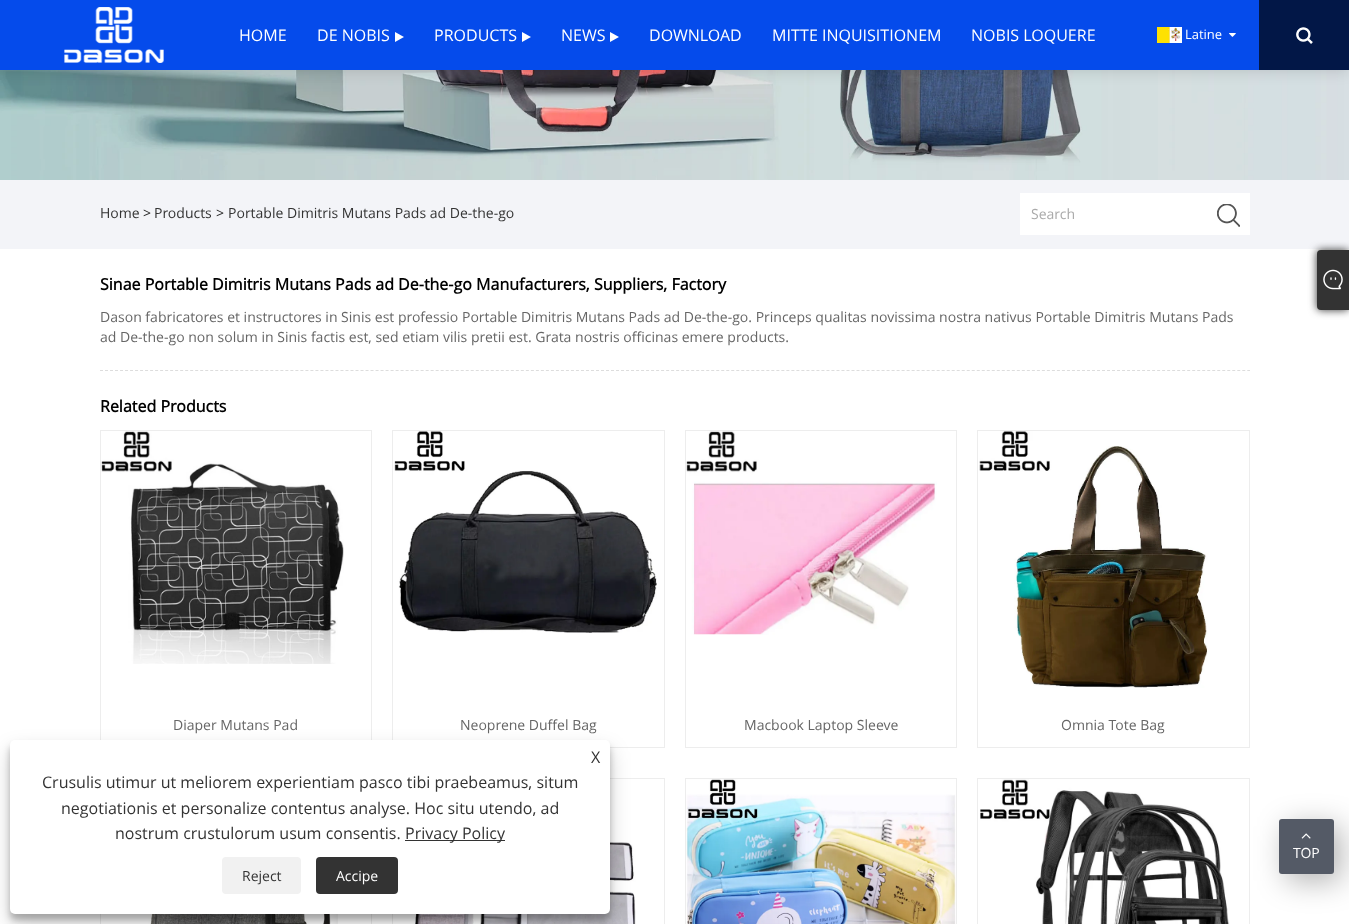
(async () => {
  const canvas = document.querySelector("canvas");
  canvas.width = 1349;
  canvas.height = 924;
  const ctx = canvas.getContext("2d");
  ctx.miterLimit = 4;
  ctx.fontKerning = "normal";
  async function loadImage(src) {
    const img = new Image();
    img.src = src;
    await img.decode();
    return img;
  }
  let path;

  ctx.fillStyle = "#ffffff";
  ctx.fillRect(0, 0, 1349, 924);
  ctx.drawImage(await loadImage("img/5.png"), 0, 70, 1349, 110);
  ctx.fillStyle = "rgba(0, 0, 0, 0.15)";
  ctx.filter = "blur(7.5px)";
  ctx.beginPath();
  ctx.rect(0, 0, 1349, 70);
  ctx.fill();
  ctx.filter = "none";
  ctx.fillStyle = "#054beb";
  ctx.fillRect(0, 0, 1259, 70);
  ctx.drawImage(await loadImage("img/1.png"), 64, 7, 100, 56);
  ctx.fillStyle = "#ffffff";
  path = new Path2D("M395 42V32L404 37Z");
  ctx.fill(path);
  path = new Path2D("M522 42V32L531 37Z");
  ctx.fill(path);
  path = new Path2D("M610 42V32L619 37Z");
  ctx.fill(path);
  ctx.drawImage(await loadImage("img/2.png"), 1157, 27, 25, 16);
  ctx.drawImage(await loadImage("img/3.png"), 1229, 33, 7, 4);
  ctx.fillStyle = "#021747";
  ctx.fillRect(1259, 0, 90, 70);
  ctx.drawImage(await loadImage("img/4.png"), 1296, 27, 17, 17);
  ctx.fillStyle = "#f3f4f8";
  ctx.fillRect(0, 180, 1349, 69);
  ctx.fillStyle = "#ffffff";
  ctx.fillRect(1020, 193, 230, 42);
  ctx.drawImage(await loadImage("img/6.png"), 1217, 204, 23, 23);
  path = new Path2D("M100 370.5H1250");
  ctx.strokeStyle = "#dddddd";
  ctx.setLineDash([3, 2.01]);
  ctx.stroke(path);
  ctx.strokeStyle = "#ededed";
  ctx.setLineDash([]);
  ctx.strokeRect(100.5, 430.5, 271, 317);
  ctx.drawImage(await loadImage("img/7.png"), 101, 431, 243, 233);
  ctx.strokeRect(392.5, 430.5, 272, 317);
  ctx.drawImage(await loadImage("img/8.png"), 394, 431, 263, 202);
  ctx.strokeRect(685.5, 430.5, 271, 317);
  ctx.drawImage(await loadImage("img/9.png"), 686, 431, 251, 204);
  ctx.strokeRect(977.5, 430.5, 272, 317);
  ctx.drawImage(await loadImage("img/10.png"), 979, 431, 229, 257);
  ctx.strokeRect(100.5, 778.5, 271, 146);
  ctx.drawImage(await loadImage("img/11.png"), 103, 914, 235, 10);
  ctx.strokeRect(392.5, 778.5, 272, 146);
  ctx.drawImage(await loadImage("img/12.png"), 395, 779, 241, 145);
  ctx.strokeRect(685.5, 778.5, 271, 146);
  ctx.drawImage(await loadImage("img/13.png"), 686, 779, 270, 145);
  ctx.strokeRect(977.5, 778.5, 272, 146);
  ctx.drawImage(await loadImage("img/14.png"), 980, 779, 250, 145);
  ctx.fillStyle = "#333333";
  ctx.filter = "blur(4px)";
  ctx.beginPath();
  ctx.roundRect(1317, 250, 32, 60, 4);
  ctx.fill();
  ctx.filter = "none";
  ctx.beginPath();
  ctx.roundRect(1317, 250, 32, 60, [4, 0, 0, 4]);
  ctx.fill();
  ctx.drawImage(await loadImage("img/15.png"), 1323, 269, 20, 21);
  ctx.fillStyle = "rgba(0, 0, 0, 0.23)";
  ctx.filter = "blur(3px)";
  ctx.beginPath();
  ctx.roundRect(10, 746, 600, 174, 5);
  ctx.fill();
  ctx.filter = "none";
  ctx.fillStyle = "rgba(0, 0, 0, 0.19)";
  ctx.filter = "blur(10px)";
  ctx.beginPath();
  ctx.roundRect(10, 750, 600, 174, 5);
  ctx.fill();
  ctx.filter = "none";
  ctx.fillStyle = "#ffffff";
  ctx.beginPath();
  ctx.roundRect(10, 740, 600, 174, 5);
  ctx.fill();
  ctx.fillStyle = "#333333";
  ctx.fillRect(405, 840, 100, 1);
  ctx.fillStyle = "#f1f1f1";
  ctx.beginPath();
  ctx.roundRect(222, 857, 79, 37, 4);
  ctx.fill();
  ctx.fillStyle = "#333333";
  ctx.beginPath();
  ctx.roundRect(316, 857, 82, 37, 4);
  ctx.fill();
  ctx.fillStyle = "rgba(0, 0, 0, 0.3)";
  ctx.filter = "blur(15px)";
  ctx.beginPath();
  ctx.roundRect(1286, 826, 55, 55, 3);
  ctx.fill();
  ctx.filter = "none";
  ctx.fillStyle = "#545a66";
  ctx.beginPath();
  ctx.roundRect(1279, 819, 55, 55, 3);
  ctx.fill();
  ctx.drawImage(await loadImage("img/16.png"), 1301, 833, 10, 6);
  ctx.font = "16px Open Sans";
  ctx.fillStyle = "#ffffff";
  for (const [text, x, y] of [
    ["HOME", 239, 41],
    ["DE NOBIS", 317, 41],
    ["PRODUCTS", 434, 41],
    ["NEWS", 561, 41],
    ["DOWNLOAD", 649, 41],
    ["MITTE INQUISITIONEM", 772, 41],
    ["NOBIS LOQUERE", 971, 41],
  ]) {
    ctx.fillText(text, x, y);
  }
  ctx.font = "13px Open Sans";
  ctx.fillText("Latine", 1185, 39);
  ctx.font = "14px Open Sans";
  ctx.fillStyle = "#333333";
  ctx.fillText("Home", 100, 218);
  ctx.fillStyle = "#282828";
  ctx.fillText(">", 143, 218);
  ctx.fillStyle = "#333333";
  ctx.fillText("Products", 154, 218);
  ctx.fillStyle = "#282828";
  ctx.fillText(">", 216, 218);
  ctx.fillStyle = "#333333";
  ctx.fillText("Portable Dimitris Mutans Pads ad De-the-go", 228, 218);
  ctx.fillStyle = "#aaaaaa";
  ctx.fillText("Search", 1031, 219);
  ctx.font = "bold 16px Open Sans";
  ctx.fillStyle = "#000000";
  ctx.fillText("Sinae Portable Dimitris Mutans Pads ad De-the-go Manufacturers, Suppliers, Factory", 100, 290);
  ctx.font = "14px Open Sans";
  ctx.fillStyle = "#666666";
  ctx.fillText("Dason fabricatores et instructores in Sinis est professio Portable Dimitris Mutans Pads ad De-the-go. Princeps qualitas novissima nostra nativus Portable Dimitris Mutans Pads", 100, 322);
  ctx.fillText("ad De-the-go non solum in Sinis factis est, sed etiam vilis pretii est. Grata nostris officinas emere products.", 100, 342);
  ctx.font = "bold 16px Open Sans";
  ctx.fillStyle = "#000000";
  ctx.fillText("Related Products", 100, 412);
  ctx.font = "14px Open Sans";
  ctx.fillStyle = "#666666";
  for (const [text, x, y] of [
    ["Diaper Mutans Pad", 173, 730],
    ["Neoprene Duffel Bag", 460, 730],
    ["Macbook Laptop Sleeve", 744, 730],
    ["Omnia Tote Bag", 1061, 730],
  ]) {
    ctx.fillText(text, x, y);
  }
  ctx.font = "16px Open Sans";
  ctx.fillStyle = "#333333";
  for (const [text, x, y] of [
    ["X", 591, 763],
    ["Crusulis utimur ut meliorem experientiam pasco tibi praebeamus, situm", 42, 788],
    ["negotiationis et personalize contentus analyse. Hoc situ utendo, ad", 61, 814],
    ["nostrum crustulorum usum consentis.", 115, 839],
    ["Privacy Policy", 405, 839],
  ]) {
    ctx.fillText(text, x, y);
  }
  ctx.font = "14px Open Sans";
  ctx.fillText("Reject", 242, 881);
  ctx.fillStyle = "#ffffff";
  ctx.fillText("Accipe", 336, 881);
  ctx.fillText("TOP", 1293, 858);
})();
